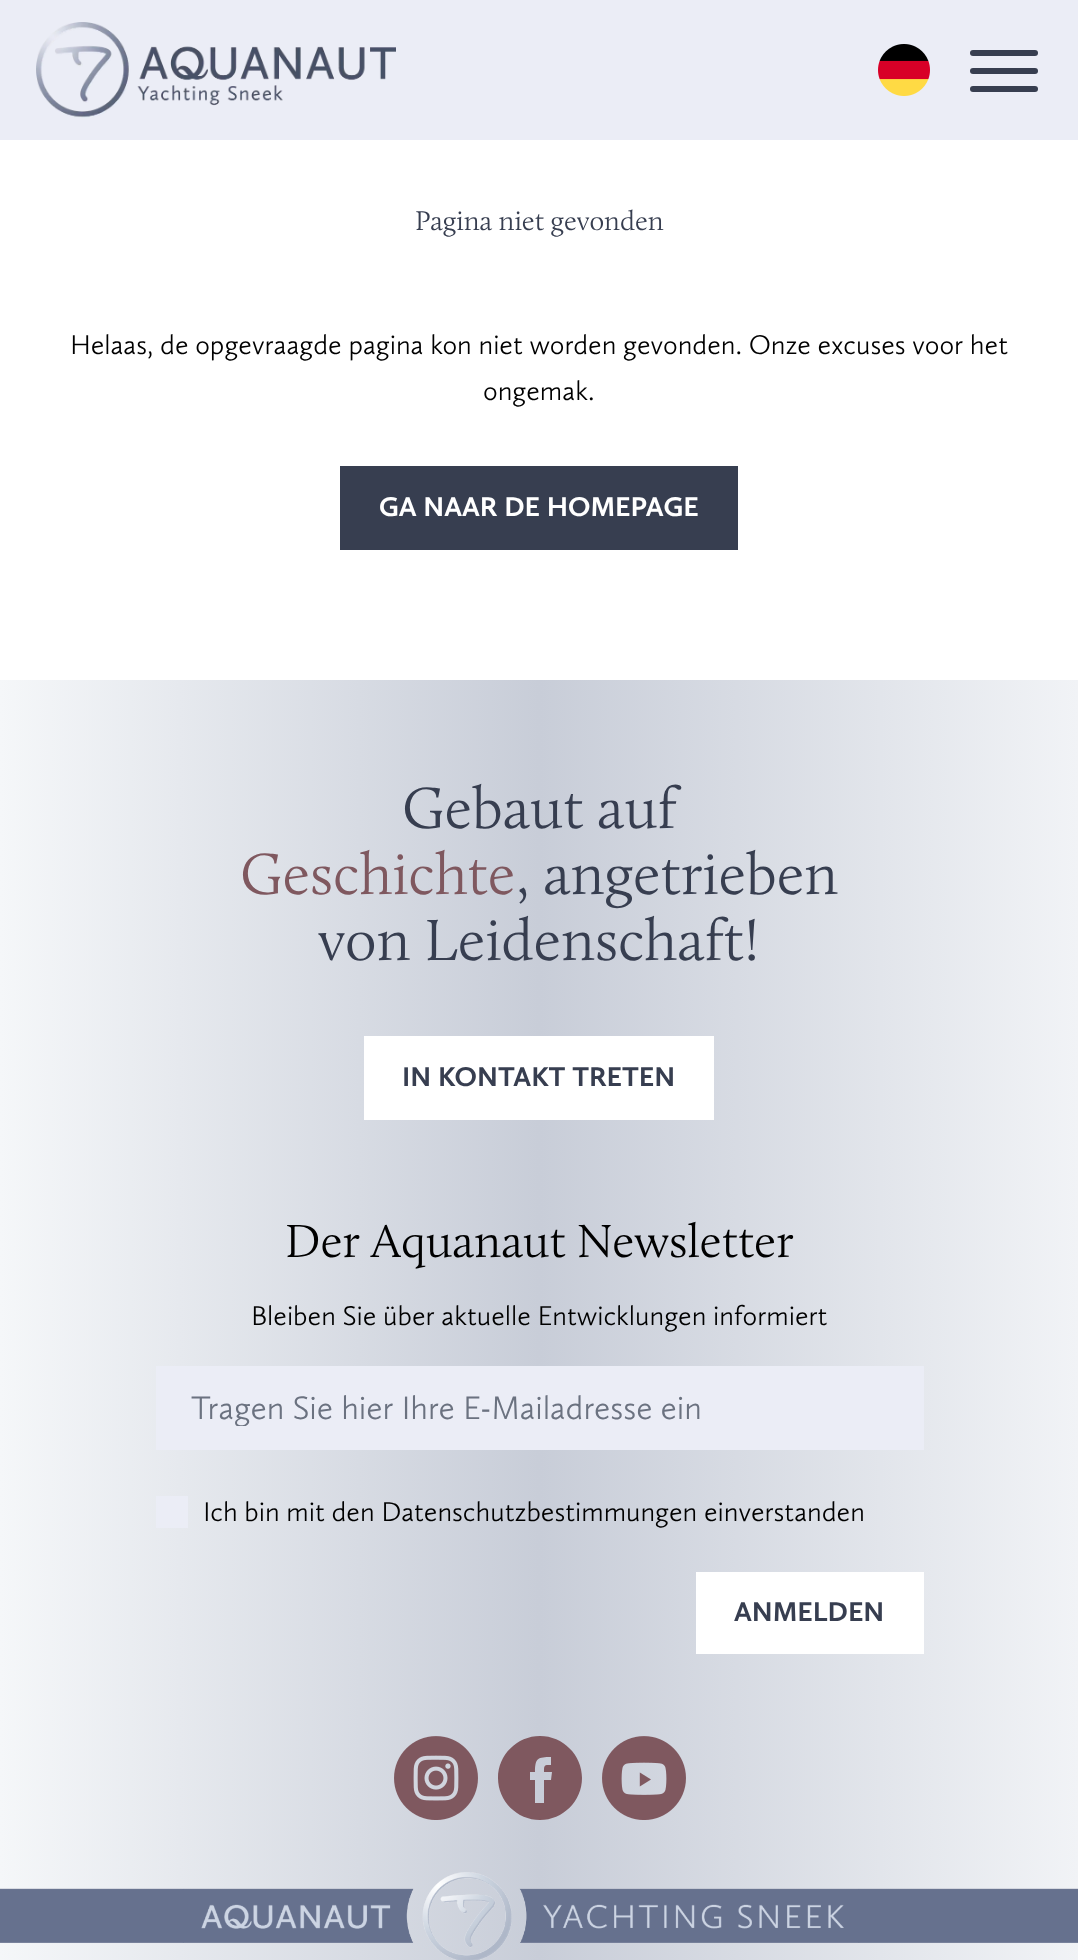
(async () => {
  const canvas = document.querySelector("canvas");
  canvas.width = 1078;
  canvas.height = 1960;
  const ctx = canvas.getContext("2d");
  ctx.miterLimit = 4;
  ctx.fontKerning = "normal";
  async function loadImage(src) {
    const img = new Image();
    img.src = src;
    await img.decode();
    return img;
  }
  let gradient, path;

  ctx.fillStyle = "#ffffff";
  ctx.fillRect(0, 0, 1078, 1960);
  ctx.fillStyle = "#ebedf6";
  ctx.fillRect(0, 0, 1078, 140);
  ctx.drawImage(await loadImage("img/1.png"), 36, 22, 360, 96);
  ctx.drawImage(await loadImage("img/2.png"), 878, 44, 52, 52);
  ctx.fillStyle = "#373e50";
  ctx.beginPath();
  ctx.roundRect(970, 68, 68, 6, 3);
  ctx.fill();
  ctx.beginPath();
  ctx.roundRect(970, 50, 68, 6, 3);
  ctx.fill();
  ctx.beginPath();
  ctx.roundRect(970, 86, 68, 6, 3);
  ctx.fill();
  ctx.fillRect(340, 466, 398, 84);
  gradient = ctx.createLinearGradient(1078, 1419, 0, 1419);
  gradient.addColorStop(0, "#f1f3f6");
  gradient.addColorStop(0.5, "#c8cdd8");
  gradient.addColorStop(1, "#f5f7f9");
  ctx.fillStyle = gradient;
  ctx.fillRect(0, 680, 1078, 1280);
  for (const [x, y, w, h, color] of [
    [364, 1036, 350, 84, "#ffffff"],
    [156, 1366, 768, 84, "#ebedf6"],
    [156, 1496, 32, 32, "#ebedf6"],
    [696, 1572, 228, 82, "#ffffff"],
  ]) {
    ctx.fillStyle = color;
    ctx.fillRect(x, y, w, h);
  }
  ctx.drawImage(await loadImage("img/3.png"), 394, 1736, 84, 84);
  ctx.fillStyle = "#7f585f";
  path = new Path2D("M540 1736C517 1736 498 1755 498 1778C498 1801 517 1820 540 1820C563 1820 582 1801 582 1778C582 1755 563 1736 540 1736ZM544 1780V1803H535V1780H530V1772H535C535 1758 538 1757 551 1757V1765C544 1765 544 1765 544 1772H552L551 1780Z");
  ctx.fill(path, "evenodd");
  ctx.drawImage(await loadImage("img/4.png"), 602, 1736, 84, 84);
  ctx.drawImage(await loadImage("img/5.png"), 0, 1872, 1078, 88);
  ctx.font = "300 28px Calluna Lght";
  ctx.fillStyle = "#373e50";
  ctx.fillText("Pagina niet gevonden", 415, 230);
  ctx.font = "300 28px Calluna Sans";
  ctx.fillStyle = "#000000";
  ctx.fillText("Helaas, de opgevraagde pagina kon niet worden gevonden. Onze excuses voor het", 70, 354);
  ctx.fillText("ongemak.", 483, 400);
  ctx.font = "bold 28px Calluna Sans";
  ctx.fillStyle = "#ffffff";
  ctx.fillText("GA NAAR DE HOMEPAGE", 379, 516);
  ctx.font = "300 60px Calluna Lght";
  ctx.fillStyle = "#373e50";
  ctx.fillText("Gebaut auf", 402, 828);
  ctx.fillStyle = "#7f585f";
  ctx.fillText("Geschichte", 240, 894);
  ctx.fillStyle = "#373e50";
  ctx.fillText(", angetrieben", 516, 894);
  ctx.fillText("von Leidenschaft!", 318, 960);
  ctx.font = "bold 28px Calluna Sans";
  ctx.fillText("IN KONTAKT TRETEN", 402, 1086);
  ctx.font = "300 48px Calluna Lght";
  ctx.fillStyle = "#000000";
  ctx.fillText("Der Aquanaut Newsletter", 285, 1257);
  ctx.font = "300 28px Calluna Sans";
  ctx.fillText("Bleiben Sie über aktuelle Entwicklungen informiert", 251, 1325);
  ctx.save();
  ctx.beginPath();
  ctx.rect(190, 1386, 698, 40);
  ctx.clip();
  ctx.font = "300 33.6px Calluna Sans";
  ctx.fillStyle = "#6b7280";
  ctx.fillText("Tragen Sie hier Ihre E-Mailadresse ein", 191, 1419);
  ctx.restore();
  ctx.fillText("Ich bin mit den Datenschutzbestimmungen einverstanden", 203, 1521);
  ctx.font = "bold 28px Calluna Sans";
  ctx.fillStyle = "#373e50";
  ctx.fillText("ANMELDEN", 734, 1621);
})();
